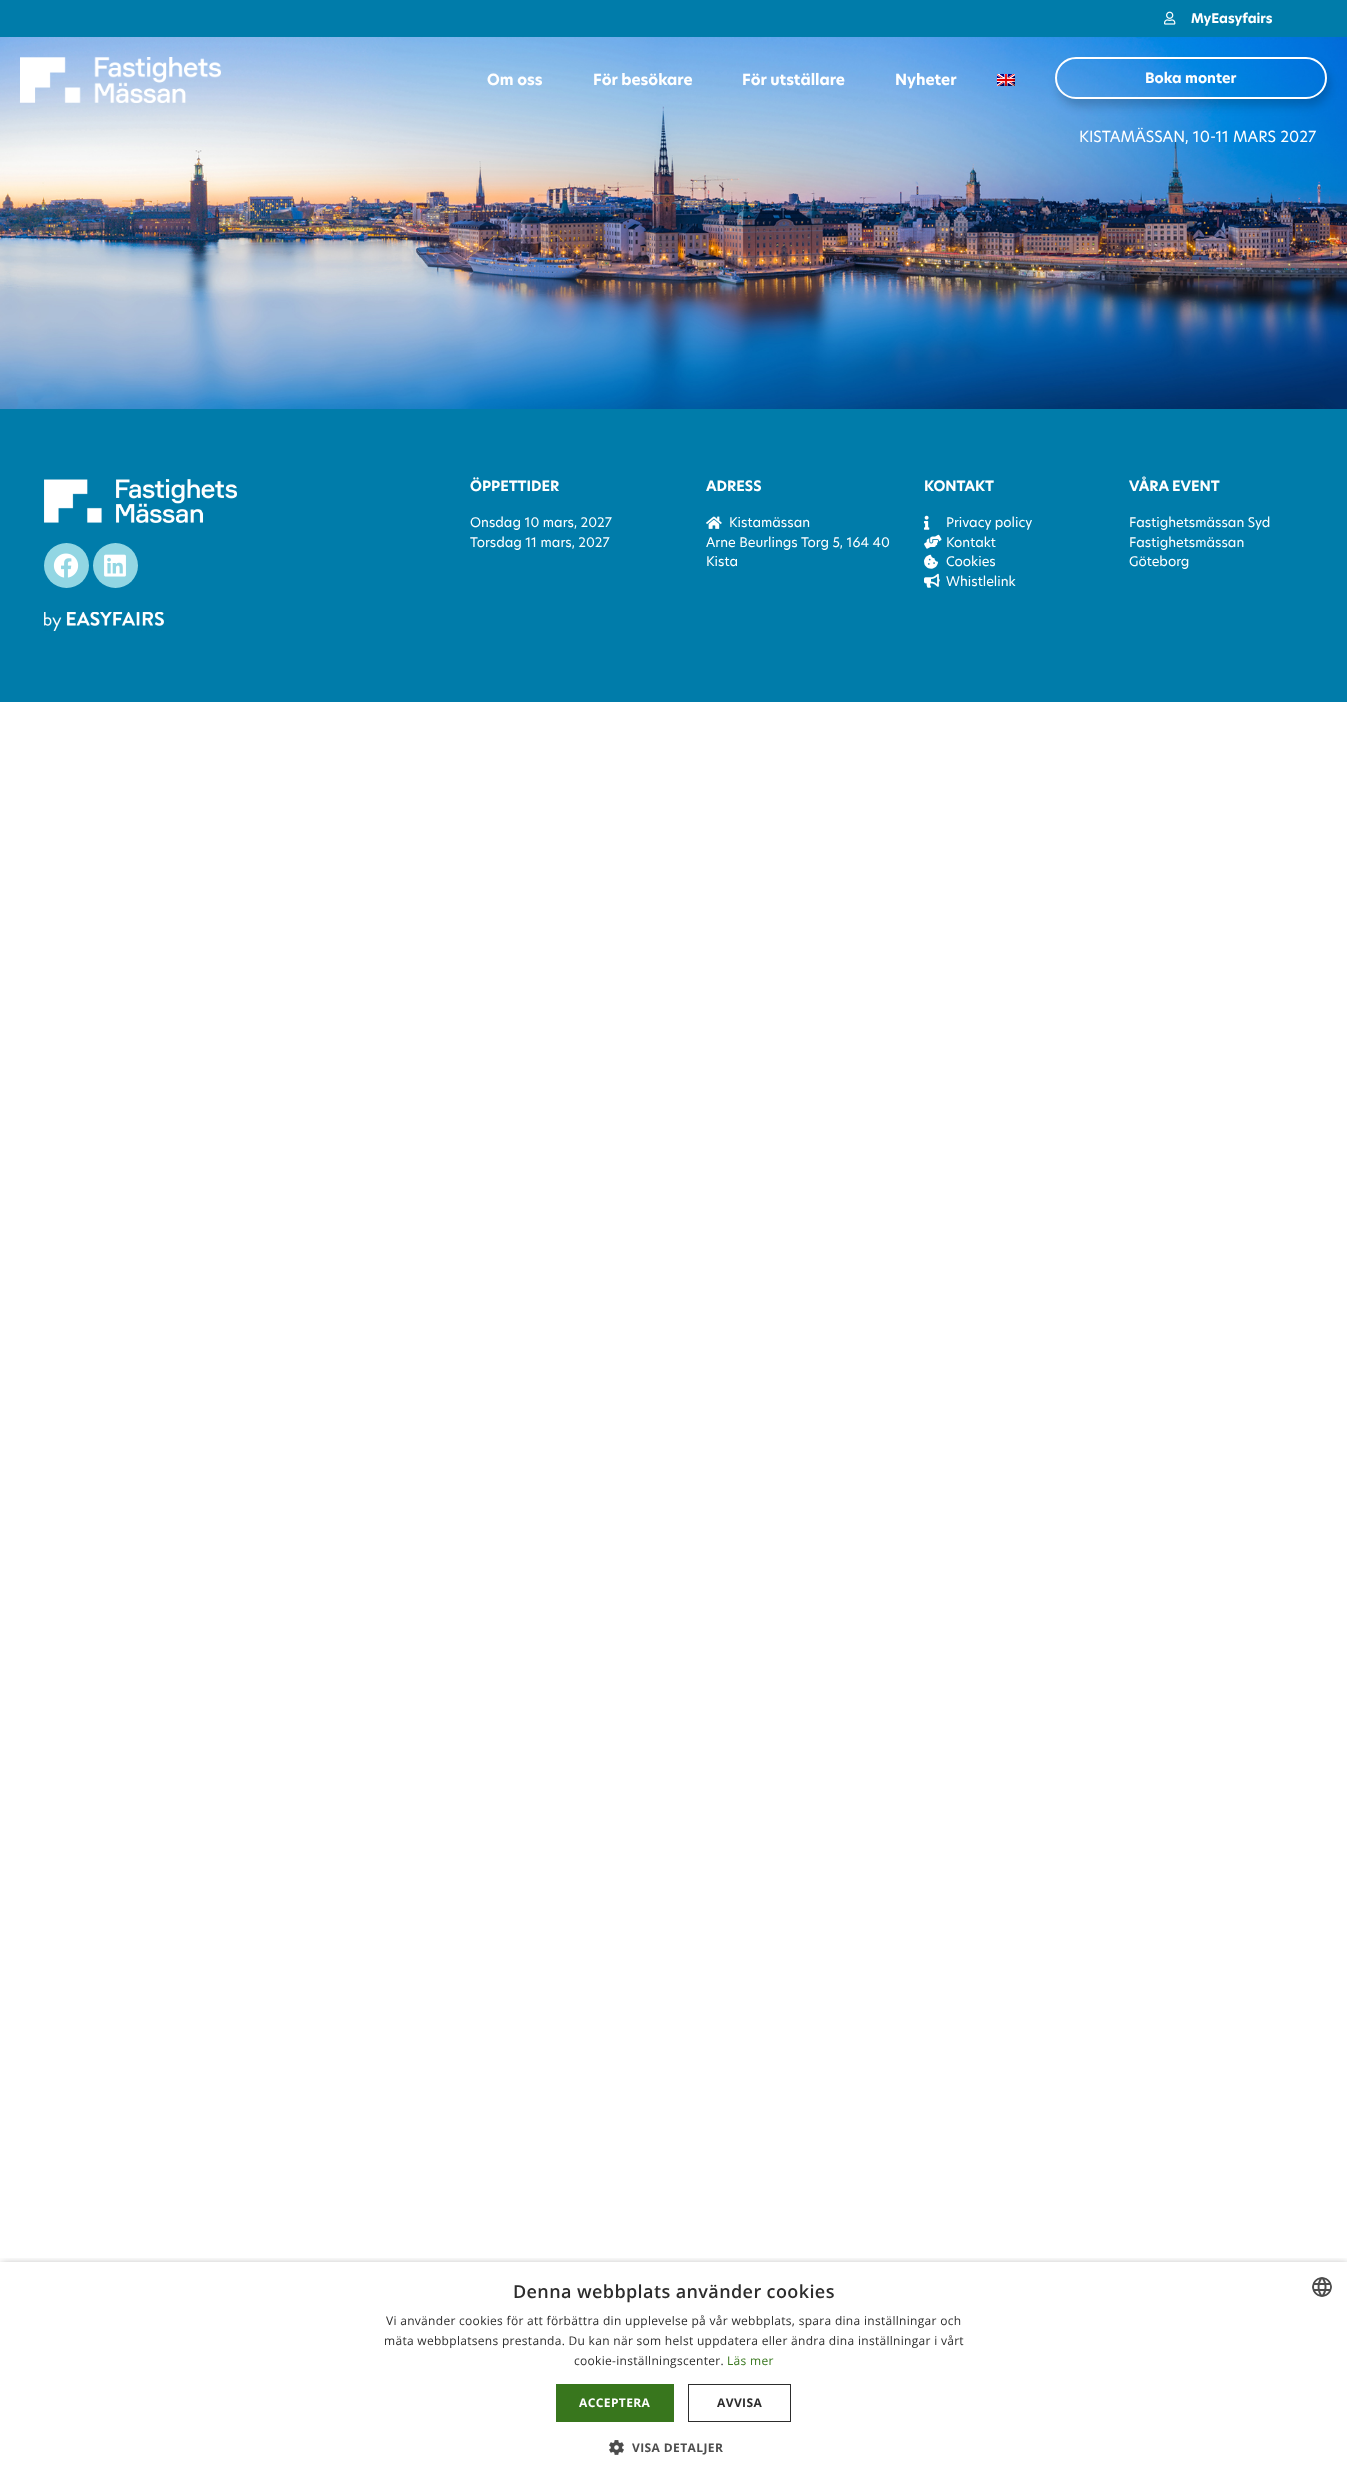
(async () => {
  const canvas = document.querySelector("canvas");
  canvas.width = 1347;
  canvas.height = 2481;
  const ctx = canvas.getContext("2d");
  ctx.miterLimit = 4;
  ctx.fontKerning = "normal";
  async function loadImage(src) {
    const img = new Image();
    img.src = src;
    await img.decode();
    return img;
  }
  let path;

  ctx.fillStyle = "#ffffff";
  ctx.fillRect(0, 0, 1347, 2481);
  ctx.fillStyle = "#007caa";
  ctx.fillRect(0, 0, 1347, 37);
  ctx.drawImage(await loadImage("img/1.png"), 1164, 11, 12, 14);
  ctx.drawImage(await loadImage("img/2.png"), 0, 37, 1347, 372);
  ctx.drawImage(await loadImage("img/3.png"), 20, 57, 201, 46);
  ctx.drawImage(await loadImage("img/4.png"), 997, 74, 18, 12);
  ctx.save();
  path = new Path2D("M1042 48H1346V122H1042ZM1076 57H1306C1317.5 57 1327 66.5 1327 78C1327 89.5 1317.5 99 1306 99H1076C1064.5 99 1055 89.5 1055 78C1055 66.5 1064.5 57 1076 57Z");
  ctx.clip(path, "evenodd");
  ctx.fillStyle = "rgba(0, 0, 0, 0.18)";
  ctx.filter = "blur(5px)";
  ctx.beginPath();
  ctx.roundRect(1058, 64, 272, 42, 21);
  ctx.fill();
  ctx.filter = "none";
  ctx.restore();
  ctx.beginPath();
  ctx.roundRect(1056, 58, 270, 40, 20);
  ctx.strokeStyle = "#ffffff";
  ctx.lineWidth = 2;
  ctx.stroke();
  ctx.fillRect(0, 409, 1347, 293);
  ctx.drawImage(await loadImage("img/5.png"), 44, 479, 193, 44);
  ctx.fillStyle = "#92d6e3";
  ctx.beginPath();
  ctx.arc(66.5, 565.5, 22.5, 0, Math.PI * 2);
  ctx.fill();
  ctx.drawImage(await loadImage("img/6.png"), 53, 553, 26, 25);
  ctx.beginPath();
  ctx.arc(115.5, 565.5, 22.5, 0, Math.PI * 2);
  ctx.fill();
  ctx.drawImage(await loadImage("img/7.png"), 104, 554, 22, 23);
  ctx.drawImage(await loadImage("img/8.png"), 44, 612, 120, 19);
  ctx.drawImage(await loadImage("img/9.png"), 706, 516, 16, 13);
  ctx.drawImage(await loadImage("img/10.png"), 924, 515, 6, 15);
  ctx.drawImage(await loadImage("img/11.png"), 924, 534, 18, 15);
  ctx.drawImage(await loadImage("img/12.png"), 924, 554, 14, 15);
  ctx.drawImage(await loadImage("img/13.png"), 924, 573, 16, 15);
  ctx.save();
  ctx.beginPath();
  ctx.rect(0, 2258, 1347, 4);
  ctx.clip();
  ctx.fillStyle = "rgba(0, 0, 0, 0.35)";
  ctx.filter = "blur(4px)";
  ctx.beginPath();
  ctx.rect(1, 2264, 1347, 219);
  ctx.fill();
  ctx.filter = "none";
  ctx.restore();
  ctx.drawImage(await loadImage("img/14.png"), 1312, 2277, 20, 20);
  ctx.fillStyle = "#38761d";
  ctx.fillRect(556, 2384, 118, 38);
  ctx.strokeStyle = "#2d2d2d";
  ctx.lineWidth = 1;
  ctx.strokeRect(688.5, 2384.5, 102, 37);
  ctx.drawImage(await loadImage("img/15.png"), 609, 2440, 15, 15);
  ctx.font = "bold 13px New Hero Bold";
  ctx.fillStyle = "#ffffff";
  ctx.fillText("MyEasyfairs", 1191, 23);
  ctx.font = "bold 15px New Hero Bold";
  for (const [text, x, y] of [
    ["Om oss", 487, 85],
    ["För besökare", 593, 85],
    ["För utställare", 742, 85],
    ["Nyheter", 895, 85],
  ]) {
    ctx.fillText(text, x, y);
  }
  ctx.font = "bold 14px New Hero Bold";
  ctx.fillText("Boka monter", 1145, 83);
  ctx.font = "15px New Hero";
  ctx.fillText("KISTAMÄSSAN, 10-11 MARS 2027", 1079, 142);
  ctx.font = "bold 14px New Hero Bold";
  ctx.fillText("ÖPPETTIDER", 470, 491);
  ctx.font = "13px New Hero";
  ctx.fillText("Onsdag 10 mars, 2027", 470, 527);
  ctx.fillText("Torsdag 11 mars, 2027", 470, 547);
  ctx.font = "bold 14px New Hero Bold";
  ctx.fillText("ADRESS", 706, 491);
  ctx.font = "13px New Hero";
  for (const [text, x, y] of [
    ["Kistamässan", 729, 527],
    ["Arne Beurlings Torg 5, 164 40", 706, 547],
    ["Kista", 706, 566],
  ]) {
    ctx.fillText(text, x, y);
  }
  ctx.font = "bold 14px New Hero Bold";
  ctx.fillText("KONTAKT", 924, 491);
  ctx.font = "13px New Hero";
  for (const [text, x, y] of [
    ["Privacy policy", 946, 527],
    ["Kontakt", 946, 547],
    ["Cookies", 946, 566],
    ["Whistlelink", 946, 586],
  ]) {
    ctx.fillText(text, x, y);
  }
  ctx.font = "bold 14px New Hero Bold";
  ctx.fillText("VÅRA EVENT", 1129, 491);
  ctx.font = "13px New Hero";
  for (const [text, x, y] of [
    ["Fastighetsmässan Syd", 1129, 527],
    ["Fastighetsmässan", 1129, 547],
    ["Göteborg", 1129, 566],
  ]) {
    ctx.fillText(text, x, y);
  }
  ctx.letterSpacing = "0.4px";
  ctx.font = "600 18px Open Sans";
  ctx.fillStyle = "#2d2d2d";
  ctx.fillText("Denna webbplats använder cookies", 513, 2298);
  ctx.letterSpacing = "0.3px";
  ctx.font = "12px Open Sans";
  for (const [text, x, y] of [
    ["Vi använder cookies för att förbättra din upplevelse på vår webbplats, spara dina inställningar och", 386, 2325],
    ["mäta webbplatsens prestanda. Du kan när som helst uppdatera eller ändra dina inställningar i vårt", 384, 2345],
    ["cookie-inställningscenter.", 574, 2365],
  ]) {
    ctx.fillText(text, x, y);
  }
  ctx.fillStyle = "#38761d";
  ctx.fillText("Läs mer", 727, 2365);
  ctx.letterSpacing = "0.4px";
  ctx.font = "bold 12px Open Sans";
  ctx.fillStyle = "#ffffff";
  ctx.fillText("ACCEPTERA", 579, 2407);
  ctx.fillStyle = "#2d2d2d";
  ctx.fillText("AVVISA", 717, 2407);
  ctx.fillStyle = "#4d4d4d";
  ctx.fillText("VISA DETALJER", 632, 2452);
})();
